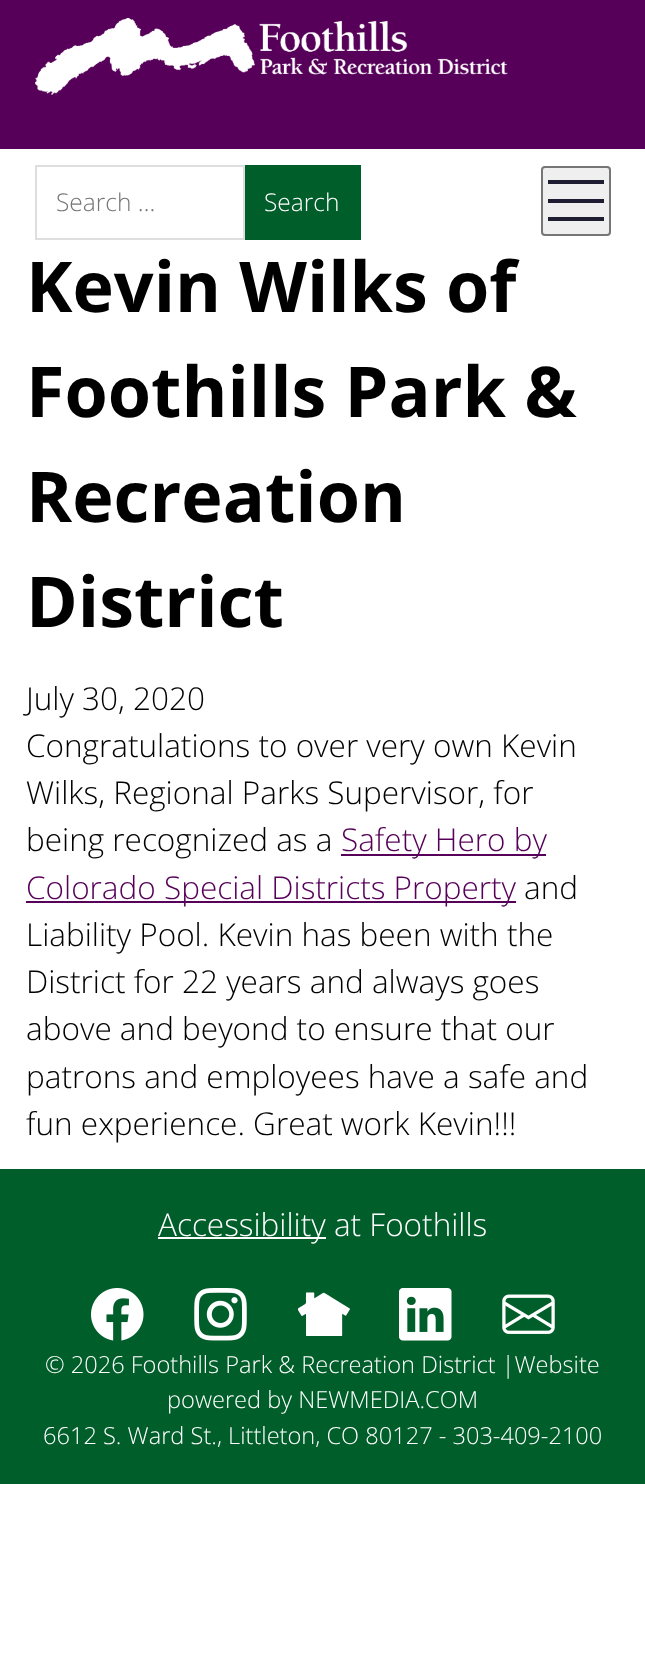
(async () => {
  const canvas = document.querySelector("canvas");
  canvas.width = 645;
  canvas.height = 1660;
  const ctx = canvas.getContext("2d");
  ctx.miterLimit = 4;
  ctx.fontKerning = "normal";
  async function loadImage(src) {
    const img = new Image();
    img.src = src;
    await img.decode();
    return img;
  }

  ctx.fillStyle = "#ffffff";
  ctx.fillRect(0, 0, 645, 1660);
  ctx.fillStyle = "#560059";
  ctx.fillRect(0, 0, 645, 149);
  ctx.drawImage(await loadImage("img/1.png"), 35, 18, 473, 77);
  ctx.strokeStyle = "#dedede";
  ctx.lineWidth = 2;
  ctx.strokeRect(36, 166, 208, 73);
  ctx.fillStyle = "#005e2a";
  ctx.fillRect(245, 165, 116, 75);
  ctx.fillStyle = "#efefef";
  ctx.beginPath();
  ctx.roundRect(542, 167, 68, 68, 3);
  ctx.fill();
  ctx.strokeStyle = "#767676";
  ctx.stroke();
  for (const [x, y, w, h, color] of [
    [548, 180, 56, 4, "#1e1d32"],
    [548, 199, 56, 4, "#1e1d32"],
    [548, 217, 56, 4, "#1e1d32"],
    [341, 854, 205, 2, "#560059"],
    [26, 901, 490, 2, "#560059"],
    [0, 1169, 645, 315, "#005e2a"],
    [158, 1237, 168, 2, "#ffffff"],
  ]) {
    ctx.fillStyle = color;
    ctx.fillRect(x, y, w, h);
  }
  ctx.drawImage(await loadImage("img/2.png"), 91, 1288, 53, 53);
  ctx.drawImage(await loadImage("img/3.png"), 194, 1288, 53, 53);
  ctx.drawImage(await loadImage("img/4.png"), 298, 1292, 52, 44);
  ctx.drawImage(await loadImage("img/5.png"), 399, 1288, 53, 53);
  ctx.drawImage(await loadImage("img/6.png"), 502, 1294, 53, 40);
  ctx.font = "300 24.5px Open Sans";
  ctx.fillStyle = "#757575";
  ctx.fillText("Search …", 56, 211);
  ctx.fillStyle = "#ffffff";
  ctx.fillText("Search", 264, 211);
  ctx.font = "bold 70px Open Sans";
  ctx.fillStyle = "#000000";
  for (const [text, x, y] of [
    ["Kevin Wilks of", 26, 312],
    ["Foothills Park &", 26, 417],
    ["Recreation", 26, 522],
    ["District", 26, 627],
  ]) {
    ctx.fillText(text, x, y);
  }
  ctx.font = "300 31.5px Open Sans";
  for (const [text, x, y] of [
    ["July 30, 2020", 26, 710],
    ["Congratulations to over very own Kevin", 26, 757],
    ["Wilks, Regional Parks Supervisor, for", 26, 804],
    ["being recognized as a", 26, 851],
  ]) {
    ctx.fillText(text, x, y);
  }
  ctx.fillStyle = "#560059";
  ctx.fillText("Safety Hero by", 341, 851);
  ctx.fillText("Colorado Special Districts Property", 26, 899);
  ctx.fillStyle = "#000000";
  for (const [text, x, y] of [
    ["and", 524, 899],
    ["Liability Pool. Kevin has been with the", 26, 946],
    ["District for 22 years and always goes", 26, 993],
    ["above and beyond to ensure that our", 26, 1040],
    ["patrons and employees have a safe and", 26, 1088],
    ["fun experience. Great work Kevin!!!", 26, 1135],
  ]) {
    ctx.fillText(text, x, y);
  }
  ctx.fillStyle = "#ffffff";
  ctx.fillText("Accessibility at Foothills", 158, 1236);
  ctx.font = "300 23.6px Open Sans";
  for (const [text, x, y] of [
    ["© 2026 Foothills Park & Recreation District |Website", 45, 1373],
    ["powered by NEWMEDIA.COM", 167, 1408],
    ["6612 S. Ward St., Littleton, CO 80127 - 303-409-2100", 43, 1444],
  ]) {
    ctx.fillText(text, x, y);
  }
})();
